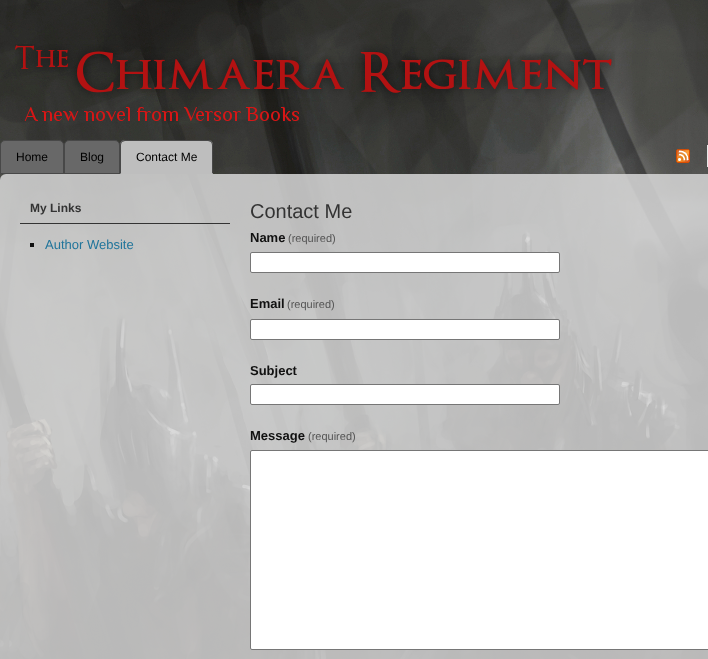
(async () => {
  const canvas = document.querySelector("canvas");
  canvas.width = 708;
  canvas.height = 659;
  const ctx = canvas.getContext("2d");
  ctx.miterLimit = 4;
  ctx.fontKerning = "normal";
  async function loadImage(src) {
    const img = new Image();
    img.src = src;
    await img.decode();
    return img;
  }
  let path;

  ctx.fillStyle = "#ffffff";
  ctx.fillRect(0, 0, 708, 659);
  ctx.drawImage(await loadImage("img/1.png"), 0, 0, 708, 659);
  ctx.drawImage(await loadImage("img/2.png"), 15, 44, 600, 78);
  ctx.fillStyle = "#686868";
  ctx.beginPath();
  ctx.roundRect(0.5, 140.5, 63, 33, [4.5, 4.5, 0, 0]);
  ctx.fill();
  ctx.strokeStyle = "#484848";
  ctx.stroke();
  ctx.beginPath();
  ctx.roundRect(64.5, 140.5, 55, 33, [4.5, 4.5, 0, 0]);
  ctx.fill();
  ctx.stroke();
  ctx.fillStyle = "#bebebe";
  ctx.beginPath();
  ctx.roundRect(120, 140, 93, 34, [5, 5, 0, 0]);
  ctx.fill();
  ctx.fillStyle = "#484848";
  path = new Path2D("M125 140C124 140 122 140 121 141L122 142L125 141H208L211 142L212 141C211 140 210 140 208 140Z");
  ctx.fill(path);
  path = new Path2D("M213 174V145C213 143.5 212.5 142 211.5 141.5L211 142C211.5 143 212 144 212 145V173Z");
  ctx.fill(path);
  ctx.fillStyle = "#bebebe";
  path = new Path2D("M213 174L212 173H121L120 174Z");
  ctx.fill(path);
  ctx.fillStyle = "#484848";
  path = new Path2D("M120 174L121 173V145C121 144 121.5 143 122 142L121.5 141.5C120.5 142 120 143.5 120 145Z");
  ctx.fill(path);
  ctx.drawImage(await loadImage("img/3.png"), 676, 149, 14, 14);
  ctx.strokeStyle = "#e8e8e8";
  ctx.strokeRect(707.5, 145.5, 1, 21);
  ctx.fillStyle = "rgba(216, 216, 216, 0.85)";
  ctx.beginPath();
  ctx.roundRect(0, 174, 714, 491, 6);
  ctx.fill();
  ctx.fillStyle = "#333333";
  ctx.fillRect(20, 223, 210, 1);
  ctx.fillStyle = "#111111";
  ctx.fillRect(30, 243, 4, 4);
  ctx.fillStyle = "#ffffff";
  ctx.beginPath();
  ctx.roundRect(250.5, 252.5, 309, 20, 1.5);
  ctx.fill();
  ctx.strokeStyle = "#767676";
  ctx.stroke();
  ctx.beginPath();
  ctx.roundRect(250.5, 319.5, 309, 20, 1.5);
  ctx.fill();
  ctx.stroke();
  ctx.beginPath();
  ctx.roundRect(250.5, 384.5, 309, 20, 1.5);
  ctx.fill();
  ctx.stroke();
  ctx.beginPath();
  ctx.roundRect(250.5, 450.5, 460, 199, 1.5);
  ctx.fill();
  ctx.stroke();
  ctx.font = "12px Liberation Sans";
  ctx.fillStyle = "#000000";
  for (const [text, x, y] of [
    ["Home", 16, 161],
    ["Blog", 80, 161],
    ["Contact Me", 136, 161],
  ]) {
    ctx.fillText(text, x, y);
  }
  ctx.font = "bold 12px Liberation Sans";
  ctx.fillStyle = "#333333";
  ctx.fillText("My Links", 30, 212);
  ctx.font = "13px Liberation Sans";
  ctx.fillStyle = "#21759b";
  ctx.fillText("Author Website", 45, 249);
  ctx.font = "20px Liberation Sans";
  ctx.fillStyle = "#333333";
  ctx.fillText("Contact Me", 250, 218);
  ctx.font = "bold 13px Liberation Sans";
  ctx.fillStyle = "#111111";
  ctx.fillText("Name", 250, 242);
  ctx.font = "11px Liberation Sans";
  ctx.fillStyle = "#555555";
  ctx.fillText("(required)", 288, 242);
  ctx.font = "bold 13px Liberation Sans";
  ctx.fillStyle = "#111111";
  ctx.fillText("Email", 250, 308);
  ctx.font = "11px Liberation Sans";
  ctx.fillStyle = "#555555";
  ctx.fillText("(required)", 287, 308);
  ctx.font = "bold 13px Liberation Sans";
  ctx.fillStyle = "#111111";
  ctx.fillText("Subject", 250, 375);
  ctx.fillText("Message", 250, 440);
  ctx.font = "11px Liberation Sans";
  ctx.fillStyle = "#555555";
  ctx.fillText("(required)", 308, 440);
})();
